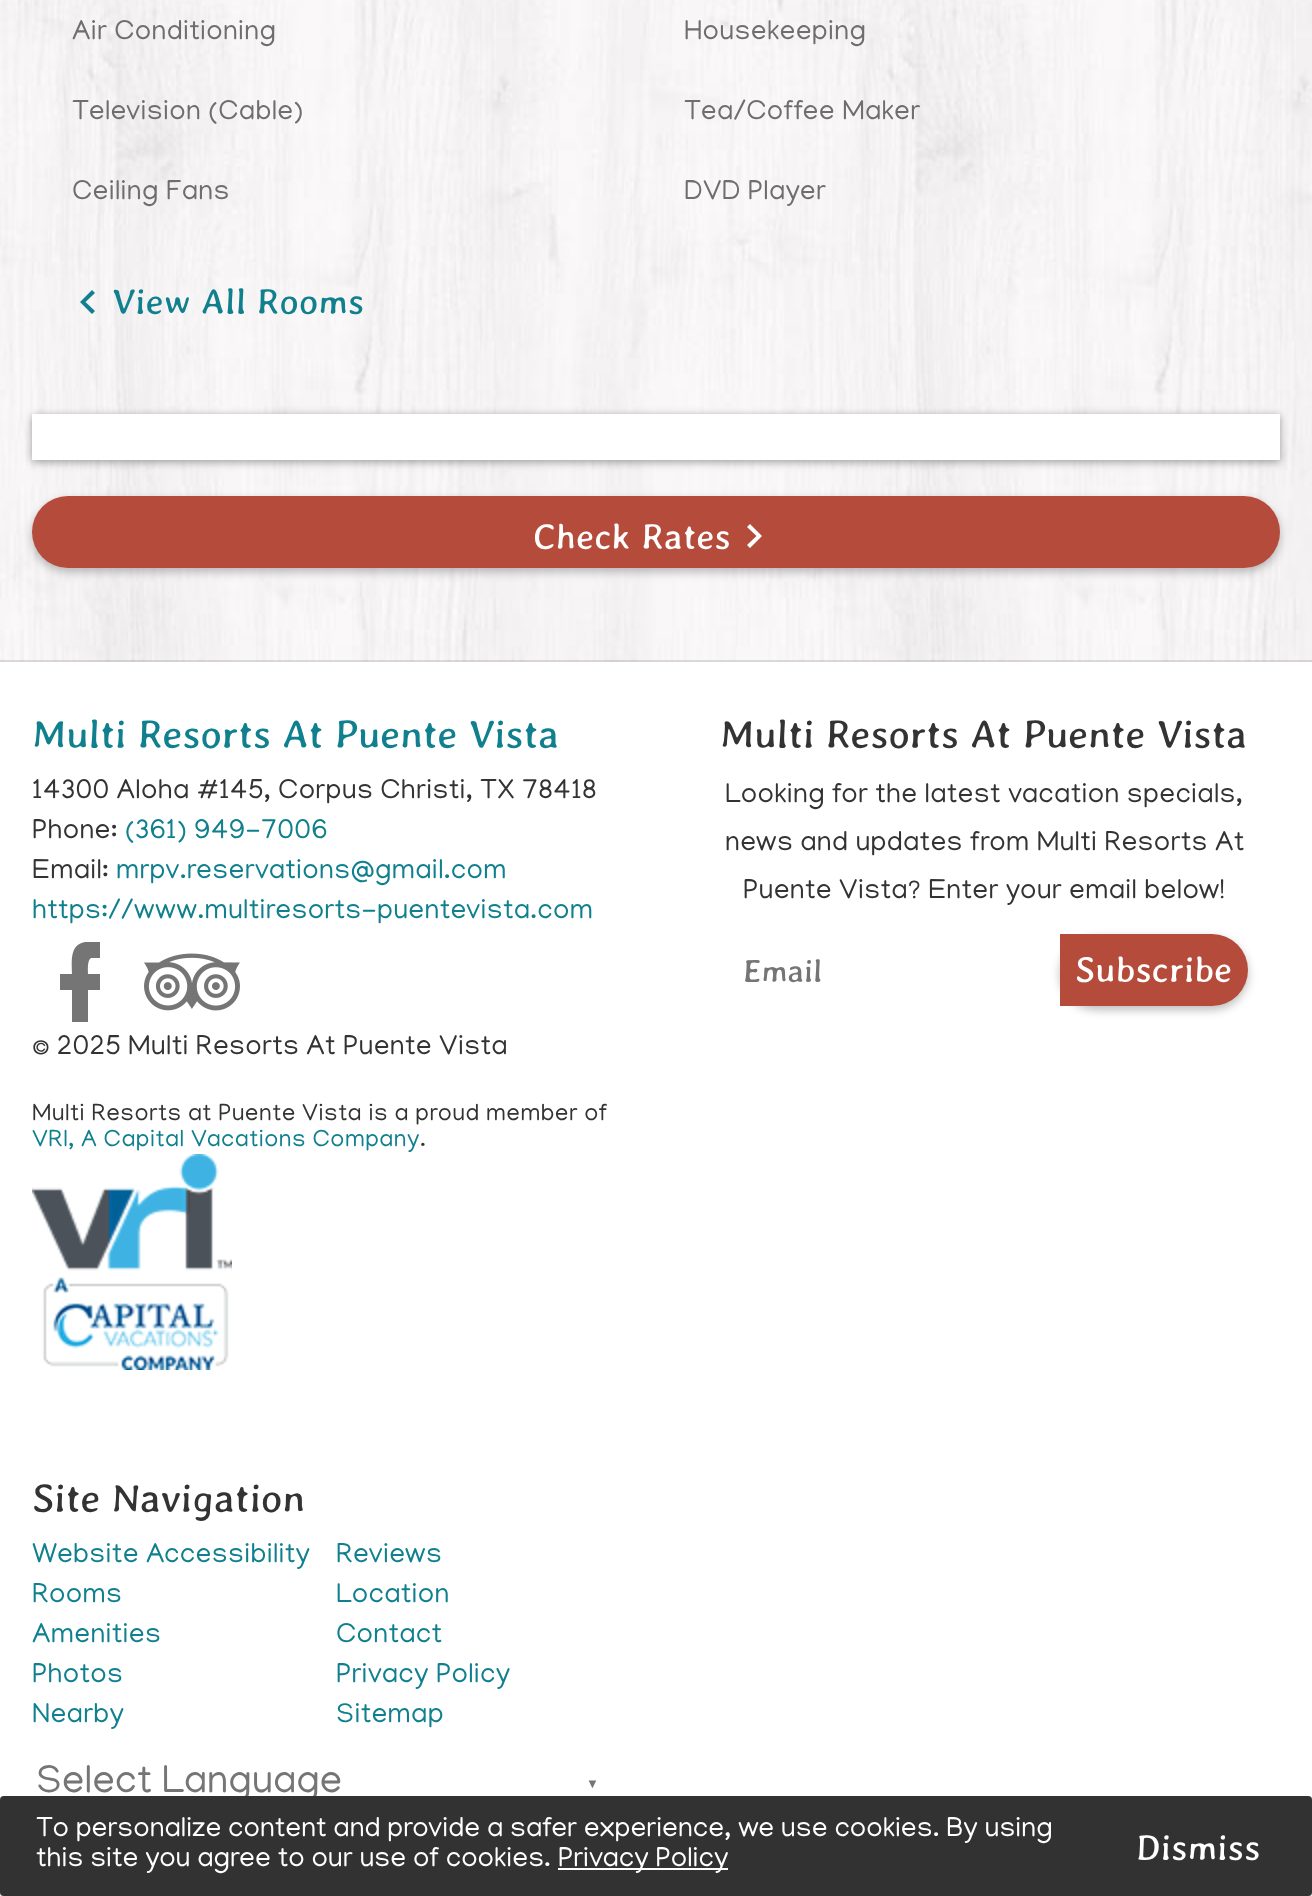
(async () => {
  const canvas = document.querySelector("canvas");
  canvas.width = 1312;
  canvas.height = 1896;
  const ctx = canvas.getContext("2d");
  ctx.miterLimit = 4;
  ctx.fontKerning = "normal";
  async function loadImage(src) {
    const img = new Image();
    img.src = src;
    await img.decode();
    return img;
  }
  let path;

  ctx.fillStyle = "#ffffff";
  ctx.fillRect(0, 0, 1312, 1896);
  ctx.drawImage(await loadImage("img/1.png"), 0, 0, 1312, 662);
  ctx.fillStyle = "#10808e";
  path = new Path2D("M95 293L85.5 302L95 311L92 314L80 302L92 290Z");
  ctx.fill(path);
  ctx.fillStyle = "rgba(0, 0, 0, 0.37)";
  ctx.filter = "blur(4px)";
  ctx.beginPath();
  ctx.rect(32, 416, 1248, 46);
  ctx.fill();
  ctx.filter = "none";
  ctx.fillStyle = "#ffffff";
  ctx.fillRect(32, 414, 1248, 46);
  ctx.fillStyle = "rgba(0, 0, 0, 0.26)";
  ctx.filter = "blur(5px)";
  ctx.beginPath();
  ctx.roundRect(32, 500, 1248, 72, 36);
  ctx.fill();
  ctx.filter = "none";
  ctx.fillStyle = "#b54b3b";
  ctx.beginPath();
  ctx.roundRect(32, 496, 1248, 72, 36);
  ctx.fill();
  ctx.fillStyle = "#ffffff";
  path = new Path2D("M750 524L747 527L756.5 536L747 545L750 548L762 536Z");
  ctx.fill(path);
  ctx.fillStyle = "rgba(0, 0, 0, 0.12)";
  ctx.fillRect(0, 660, 1312, 2);
  ctx.fillStyle = "#757575";
  path = new Path2D("M100 942V958H91C87 960 88 971 88 974H100V990H88V1022H72V990H60V974H72C72 962 69 945 85 942Z");
  ctx.fill(path);
  ctx.drawImage(await loadImage("img/2.png"), 144, 953, 96, 58);
  ctx.drawImage(await loadImage("img/3.png"), 32, 1154, 200, 216);
  ctx.fillStyle = "rgba(0, 0, 0, 0.26)";
  ctx.filter = "blur(5px)";
  ctx.beginPath();
  ctx.roundRect(1060, 938, 188, 72, 36);
  ctx.fill();
  ctx.filter = "none";
  ctx.fillStyle = "#b54b3b";
  ctx.beginPath();
  ctx.roundRect(1060, 934, 188, 72, [0, 36, 36, 0]);
  ctx.fill();
  ctx.save();
  ctx.beginPath();
  ctx.rect(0, 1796, 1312, 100);
  ctx.clip();
  ctx.fillStyle = "rgba(0, 0, 0, 0.26)";
  ctx.filter = "blur(5px)";
  ctx.beginPath();
  ctx.roundRect(0, 1800, 1312, 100, 4);
  ctx.fill();
  ctx.filter = "none";
  ctx.restore();
  ctx.letterSpacing = "0.3px";
  ctx.font = "28px Manjari";
  ctx.fillStyle = "#6e6e6e";
  for (const [text, x, y] of [
    ["Air Conditioning", 72, 39],
    ["Housekeeping", 684, 39],
    ["Television (Cable)", 72, 119],
    ["Tea/Coffee Maker", 684, 119],
    ["Ceiling Fans", 72, 199],
    ["DVD Player", 684, 199],
  ]) {
    ctx.fillText(text, x, y);
  }
  ctx.letterSpacing = "0.4px";
  ctx.font = "36px Averia Gruesa Libre";
  ctx.fillStyle = "#10808e";
  ctx.fillText("View All Rooms", 112, 314);
  ctx.fillStyle = "#ffffff";
  ctx.fillText("Check Rates", 533, 549);
  ctx.letterSpacing = "0.2px";
  ctx.font = "40px Averia Gruesa Libre";
  ctx.fillStyle = "#10808e";
  ctx.fillText("Multi Resorts At Puente Vista", 32, 748);
  ctx.letterSpacing = "0.3px";
  ctx.font = "28px Manjari";
  ctx.fillStyle = "#333333";
  ctx.fillText("14300 Aloha #145, Corpus Christi, TX 78418", 32, 798);
  ctx.fillText("Phone:", 32, 838);
  ctx.fillStyle = "#10808e";
  ctx.fillText("(361) 949-7006", 125, 838);
  ctx.fillStyle = "#333333";
  ctx.fillText("Email:", 32, 878);
  ctx.fillStyle = "#10808e";
  ctx.fillText("mrpv.reservations@gmail.com", 116, 878);
  ctx.fillText("https://www.multiresorts-puentevista.com", 32, 918);
  ctx.fillStyle = "#333333";
  ctx.fillText("© 2025 Multi Resorts At Puente Vista", 32, 1054);
  ctx.letterSpacing = "0.48px";
  ctx.font = "24px Manjari";
  ctx.fillText("Multi Resorts at Puente Vista is a proud member of", 32, 1120);
  ctx.fillStyle = "#10808e";
  ctx.fillText("VRI, A Capital Vacations Company", 32, 1146);
  ctx.fillStyle = "#333333";
  ctx.fillText(".", 420, 1146);
  ctx.letterSpacing = "0.2px";
  ctx.font = "40px Averia Gruesa Libre";
  ctx.fillText("Multi Resorts At Puente Vista", 720, 748);
  ctx.letterSpacing = "0.3px";
  ctx.font = "28px Manjari";
  for (const [text, x, y] of [
    ["Looking for the latest vacation specials,", 725, 802],
    ["news and updates from Multi Resorts At", 725, 850],
    ["Puente Vista? Enter your email below!", 743, 898],
  ]) {
    ctx.fillText(text, x, y);
  }
  ctx.letterSpacing = "0px";
  ctx.font = "32px Averia Gruesa Libre";
  ctx.fillStyle = "#757575";
  ctx.fillText("Email", 743, 982);
  ctx.letterSpacing = "0.4px";
  ctx.font = "36px Averia Gruesa Libre";
  ctx.fillStyle = "#ffffff";
  ctx.fillText("Subscribe", 1075, 982);
  ctx.letterSpacing = "0.2px";
  ctx.font = "40px Averia Gruesa Libre";
  ctx.fillStyle = "#333333";
  ctx.fillText("Site Navigation", 32, 1512);
  ctx.letterSpacing = "0.3px";
  ctx.font = "28px Manjari";
  ctx.fillStyle = "#10808e";
  for (const [text, x, y] of [
    ["Website Accessibility", 32, 1562],
    ["Reviews", 336, 1562],
    ["Rooms", 32, 1602],
    ["Location", 336, 1602],
    ["Amenities", 32, 1642],
    ["Contact", 336, 1642],
    ["Photos", 32, 1682],
    ["Privacy Policy", 336, 1682],
    ["Nearby", 32, 1722],
    ["Sitemap", 336, 1722],
  ]) {
    ctx.fillText(text, x, y);
  }
  ctx.letterSpacing = "0px";
  ctx.font = "40px Manjari";
  ctx.fillStyle = "#757575";
  ctx.fillText("Select Language", 36, 1792);
  ctx.letterSpacing = "13px";
  ctx.font = "13px Liberation Sans";
  ctx.fillText("▼", 586, 1788);
  ctx.fillStyle = "#323232";
  ctx.beginPath();
  ctx.roundRect(0, 1796, 1312, 100, 4);
  ctx.fill();
  ctx.letterSpacing = "0px";
  ctx.font = "28px Manjari";
  ctx.fillStyle = "#ffffff";
  ctx.fillText("To personalize content and provide a safer experience, we use cookies. By using", 36, 1836);
  ctx.fillText("this site you agree to our use of cookies.", 36, 1866);
  ctx.fillRect(558, 1868, 170, 2);
  ctx.fillText("Privacy Policy", 558, 1866);
  ctx.letterSpacing = "0.4px";
  ctx.font = "36px Averia Gruesa Libre";
  ctx.fillText("Dismiss", 1136, 1860);
})();
